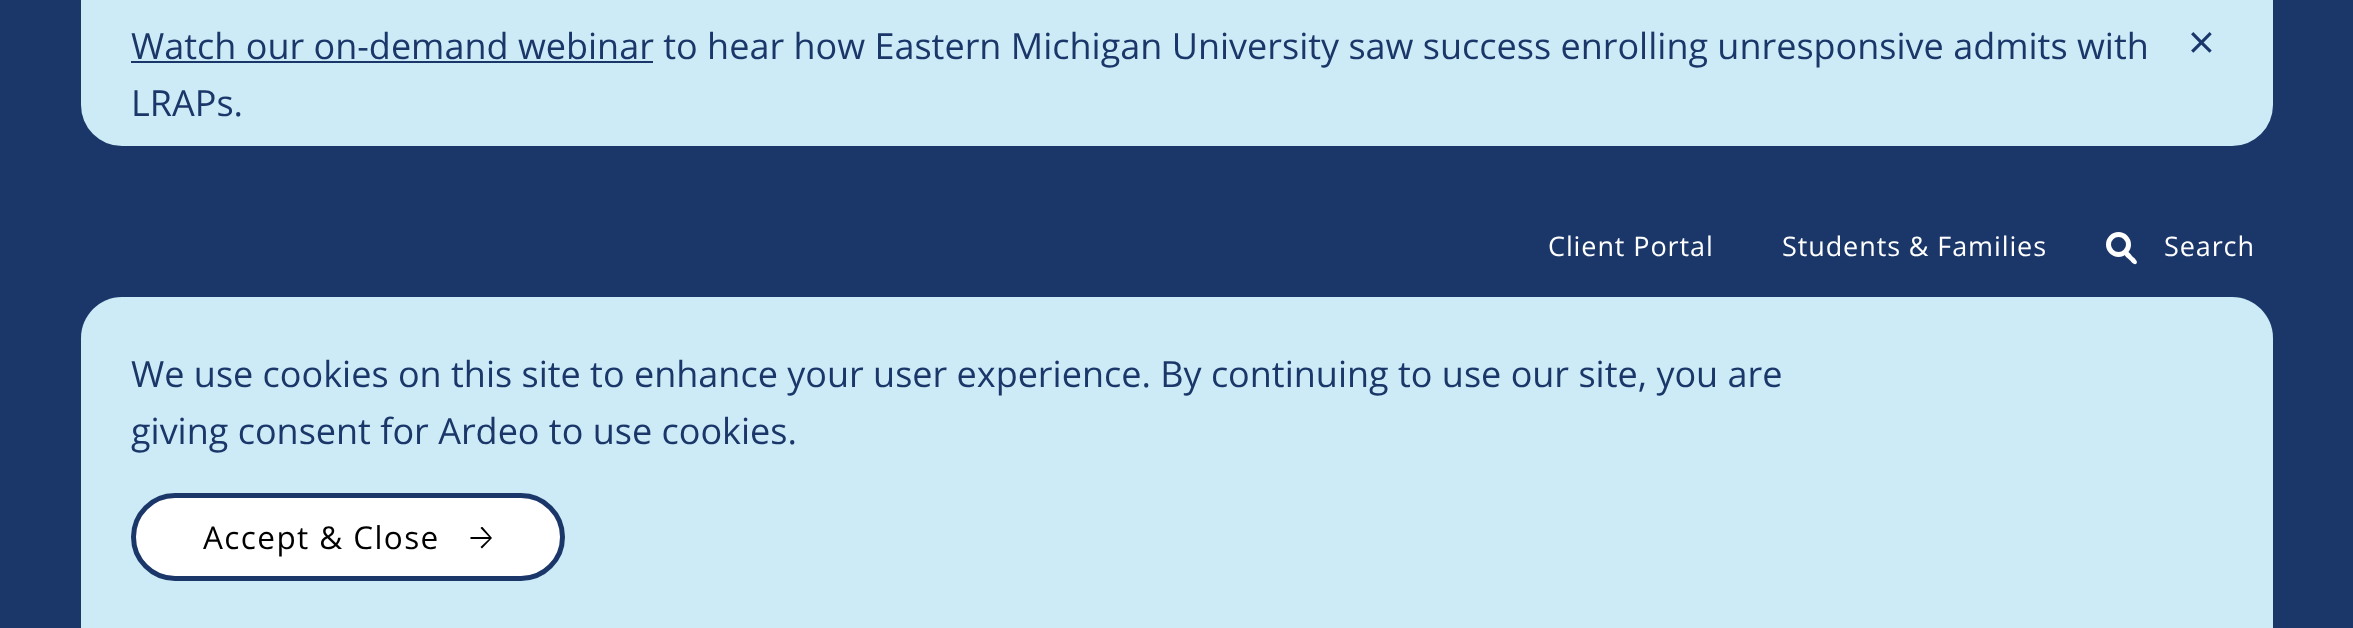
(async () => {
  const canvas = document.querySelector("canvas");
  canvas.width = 2353;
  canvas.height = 628;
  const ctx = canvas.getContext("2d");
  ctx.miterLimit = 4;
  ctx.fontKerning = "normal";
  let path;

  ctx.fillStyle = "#1b3769";
  ctx.fillRect(0, 0, 2353, 628);
  ctx.fillStyle = "#ccebf7";
  ctx.beginPath();
  ctx.roundRect(81, 0, 2192, 146, [0, 0, 41, 41]);
  ctx.fill();
  ctx.fillStyle = "#1b3769";
  ctx.fillRect(131, 61, 522, 2);
  ctx.beginPath();
  ctx.arc(2118.5, 244.5, 10, 0, Math.PI * 2);
  ctx.strokeStyle = "#ffffff";
  ctx.lineWidth = 5;
  ctx.stroke();
  ctx.fillStyle = "#ffffff";
  path = new Path2D("M2125 252C2127.5 249.5 2131 255 2132 256C2133.5 257.5 2138.5 261 2136.5 263.5C2134 266 2130.5 260.5 2129 259.5C2127.5 258 2122.5 254.5 2125 252Z");
  ctx.fill(path);
  ctx.fillStyle = "#ccebf7";
  path = new Path2D("M122 297H2232C2254.5 297 2273 315.5 2273 338V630H81V338C81 315.5 99.5 297 122 297Z");
  ctx.fill(path);
  ctx.fillStyle = "#ffffff";
  ctx.beginPath();
  ctx.roundRect(133.5, 495.5, 429, 83, 41.5);
  ctx.fill();
  ctx.strokeStyle = "#1b3769";
  ctx.stroke();
  ctx.fillStyle = "#000000";
  path = new Path2D("M470.5 537V539H489L480.5 547L482 548.5L492 538L482.5 527H481.5L480.5 528L489 537Z");
  ctx.fill(path);
  ctx.font = "36px Open Sans";
  ctx.fillStyle = "#1b3769";
  ctx.fillText("Watch our on-demand webinar to hear how Eastern Michigan University saw success enrolling unresponsive admits with", 131, 59);
  ctx.fillText("LRAPs.", 131, 116);
  ctx.font = "47px Open Sans";
  ctx.fillText("×", 2188, 59);
  ctx.letterSpacing = "0.9px";
  ctx.font = "27px Open Sans";
  ctx.fillStyle = "#ffffff";
  for (const [text, x, y] of [
    ["Client Portal", 1548, 256],
    ["Students & Families", 1782, 256],
    ["Search", 2164, 256],
  ]) {
    ctx.fillText(text, x, y);
  }
  ctx.letterSpacing = "0px";
  ctx.font = "36px Open Sans";
  ctx.fillStyle = "#1b3769";
  ctx.fillText("We use cookies on this site to enhance your user experience. By continuing to use our site, you are", 131, 387);
  ctx.fillText("giving consent for Ardeo to use cookies.", 131, 444);
  ctx.letterSpacing = "1.4px";
  ctx.font = "31.5px Open Sans";
  ctx.fillStyle = "#000000";
  ctx.fillText("Accept & Close", 203, 549);
})();
